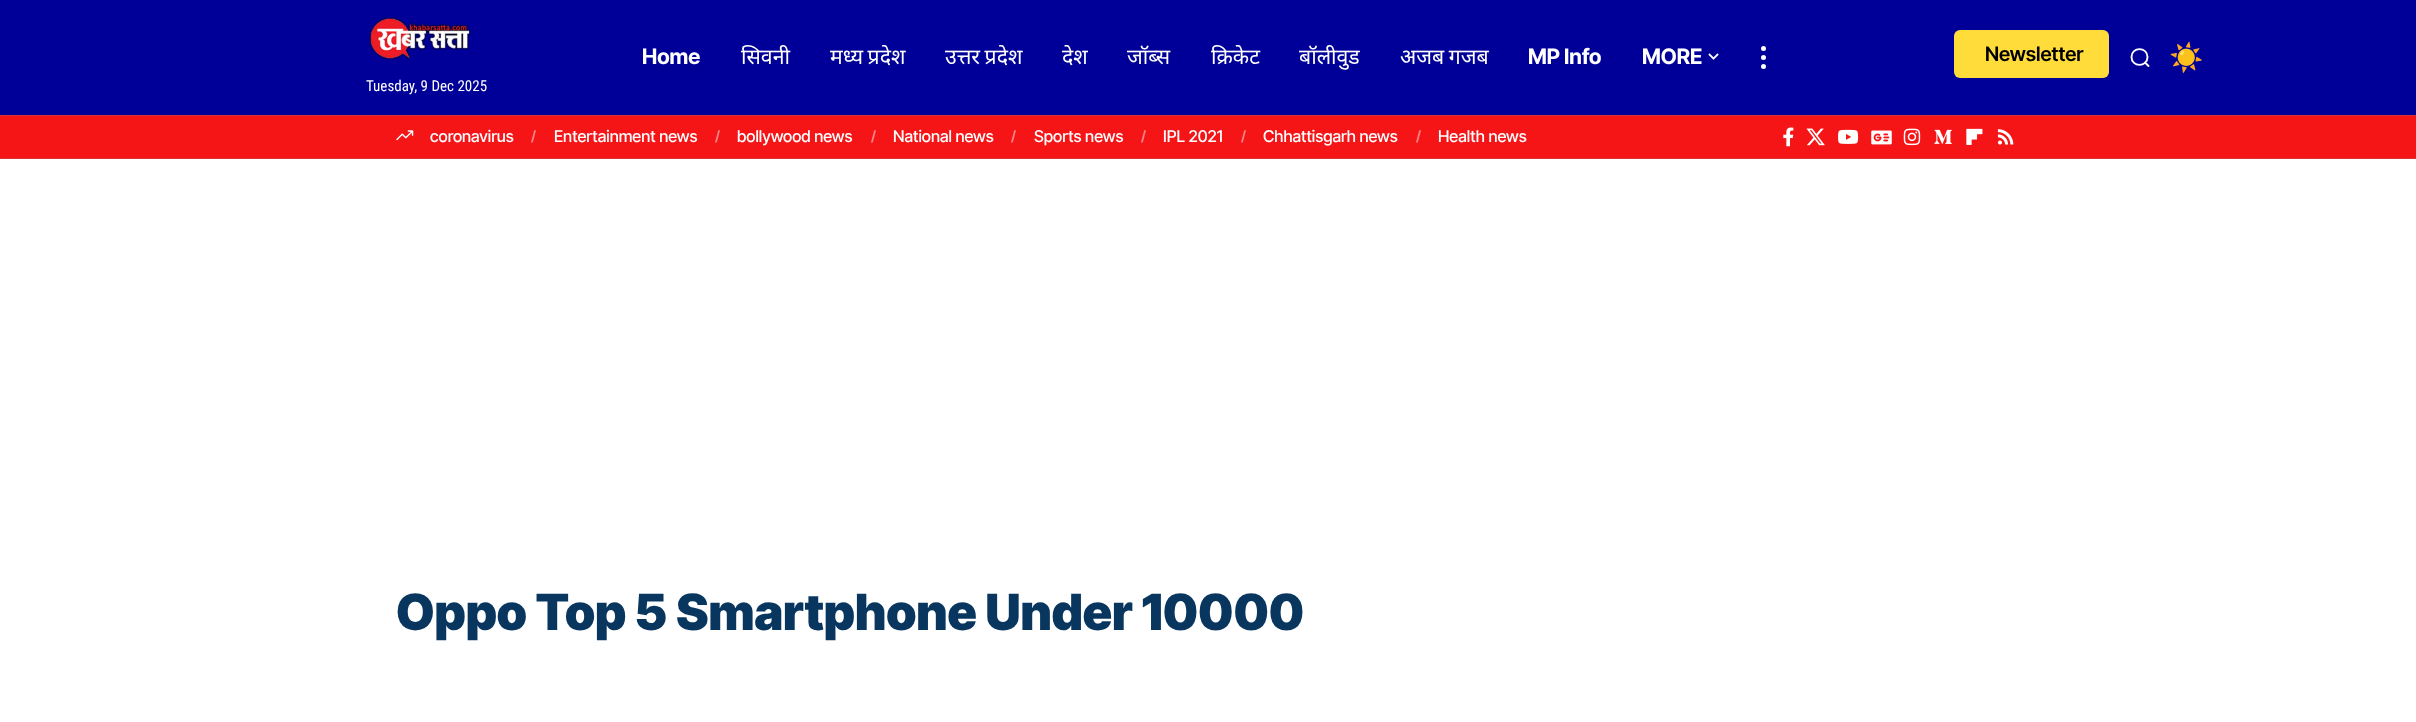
(async () => {
  const canvas = document.querySelector("canvas");
  canvas.width = 2416;
  canvas.height = 722;
  const ctx = canvas.getContext("2d");
  ctx.miterLimit = 4;
  ctx.fontKerning = "normal";
  async function loadImage(src) {
    const img = new Image();
    img.src = src;
    await img.decode();
    return img;
  }
  let path;

  ctx.fillStyle = "#ffffff";
  ctx.fillRect(0, 0, 2416, 722);
  ctx.fillStyle = "#000098";
  ctx.fillRect(0, 0, 2416, 115);
  ctx.drawImage(await loadImage("img/1.png"), 1708, 53, 11, 7);
  ctx.fillStyle = "#ffffff";
  ctx.beginPath();
  ctx.arc(1763.5, 48.5, 2.5, 0, Math.PI * 2);
  ctx.fill();
  ctx.beginPath();
  ctx.arc(1763.5, 57.5, 2.5, 0, Math.PI * 2);
  ctx.fill();
  ctx.beginPath();
  ctx.arc(1763.5, 66.5, 2.5, 0, Math.PI * 2);
  ctx.fill();
  ctx.drawImage(await loadImage("img/2.png"), 369, 17, 102, 43);
  ctx.fillStyle = "#ffdc39";
  ctx.beginPath();
  ctx.roundRect(1954, 30, 155, 48, 6);
  ctx.fill();
  path = new Path2D("M2148.5 66L2145 62.5M2147.5 57C2147.5 67.5 2131.5 67.5 2131.5 57C2131.5 46.5 2147.5 46.5 2147.5 57Z");
  ctx.strokeStyle = "#ffffff";
  ctx.lineWidth = 1.9;
  ctx.lineCap = "round";
  ctx.lineJoin = "round";
  ctx.stroke(path);
  ctx.drawImage(await loadImage("img/3.png"), 2170, 41, 32, 32);
  for (const [x, y, w, h, color] of [
    [0, 116, 2416, 42, "#f51416"],
    [0, 115, 2416, 1, "#d83334"],
    [0, 158, 2416, 1, "#d83334"],
  ]) {
    ctx.fillStyle = color;
    ctx.fillRect(x, y, w, h);
  }
  ctx.drawImage(await loadImage("img/4.png"), 396, 130, 18, 11);
  ctx.drawImage(await loadImage("img/5.png"), 1783, 127, 11, 20);
  ctx.drawImage(await loadImage("img/6.png"), 1806, 128, 19, 18);
  ctx.drawImage(await loadImage("img/7.png"), 1838, 129, 21, 15);
  ctx.drawImage(await loadImage("img/8.png"), 1871, 130, 21, 15);
  ctx.drawImage(await loadImage("img/9.png"), 1903, 128, 18, 18);
  ctx.drawImage(await loadImage("img/10.png"), 1934, 129, 18, 15);
  ctx.drawImage(await loadImage("img/11.png"), 1966, 128, 17, 17);
  ctx.drawImage(await loadImage("img/12.png"), 1997, 129, 17, 16);
  ctx.font = "bold 21.25px Inter Tight";
  ctx.fillStyle = "#ffffff";
  ctx.fillText("Home", 642, 64);
  ctx.font = "21.25px Noto Sans";
  ctx.fillText("सिवनी", 741, 64);
  ctx.wordSpacing = "-1px";
  ctx.fillText("मध्य प्रदेश", 830, 64);
  ctx.fillText("उत्तर प्रदेश", 945, 64);
  ctx.wordSpacing = "0px";
  for (const [text, x, y] of [
    ["देश", 1062, 64],
    ["जॉब्स", 1127, 64],
    ["क्रिकेट", 1211, 64],
    ["बॉलीवुड", 1299, 64],
  ]) {
    ctx.fillText(text, x, y);
  }
  ctx.wordSpacing = "-1px";
  ctx.fillText("अजब गजब", 1400, 64);
  ctx.wordSpacing = "0px";
  ctx.font = "bold 21.25px Inter Tight";
  ctx.fillText("MP Info", 1528, 64);
  ctx.fillText("MORE", 1642, 64);
  ctx.font = "15px Roboto Condensed";
  ctx.fillText("Tuesday, 9 Dec 2025", 366, 91);
  ctx.font = "600 20px Inter Tight";
  ctx.fillStyle = "#000000";
  ctx.fillText("Newsletter", 1985, 61);
  ctx.font = "500 16.25px Inter Tight";
  ctx.fillStyle = "#ffffff";
  ctx.fillText("coronavirus", 430, 142);
  ctx.font = "bold 14px Inter Tight";
  ctx.fillStyle = "#fa8283";
  ctx.fillText("/", 531, 141);
  ctx.font = "500 16.25px Inter Tight";
  ctx.fillStyle = "#ffffff";
  ctx.fillText("Entertainment news", 554, 142);
  ctx.font = "bold 14px Inter Tight";
  ctx.fillStyle = "#fa8283";
  ctx.fillText("/", 715, 141);
  ctx.font = "500 16.25px Inter Tight";
  ctx.fillStyle = "#ffffff";
  ctx.fillText("bollywood news", 737, 142);
  ctx.font = "bold 14px Inter Tight";
  ctx.fillStyle = "#fa8283";
  ctx.fillText("/", 871, 141);
  ctx.font = "500 16.25px Inter Tight";
  ctx.fillStyle = "#ffffff";
  ctx.fillText("National news", 893, 142);
  ctx.font = "bold 14px Inter Tight";
  ctx.fillStyle = "#fa8283";
  ctx.fillText("/", 1011, 141);
  ctx.font = "500 16.25px Inter Tight";
  ctx.fillStyle = "#ffffff";
  ctx.fillText("Sports news", 1034, 142);
  ctx.font = "bold 14px Inter Tight";
  ctx.fillStyle = "#fa8283";
  ctx.fillText("/", 1141, 141);
  ctx.font = "500 16.25px Inter Tight";
  ctx.fillStyle = "#ffffff";
  ctx.fillText("IPL 2021", 1163, 142);
  ctx.font = "bold 14px Inter Tight";
  ctx.fillStyle = "#fa8283";
  ctx.fillText("/", 1241, 141);
  ctx.font = "500 16.25px Inter Tight";
  ctx.fillStyle = "#ffffff";
  ctx.fillText("Chhattisgarh news", 1263, 142);
  ctx.font = "bold 14px Inter Tight";
  ctx.fillStyle = "#fa8283";
  ctx.fillText("/", 1416, 141);
  ctx.font = "500 16.25px Inter Tight";
  ctx.fillStyle = "#ffffff";
  ctx.fillText("Health news", 1438, 142);
  ctx.font = "900 50px Inter Tight";
  ctx.fillStyle = "#09365e";
  ctx.fillText("Oppo Top 5 Smartphone Under 10000", 396, 630);
})();
